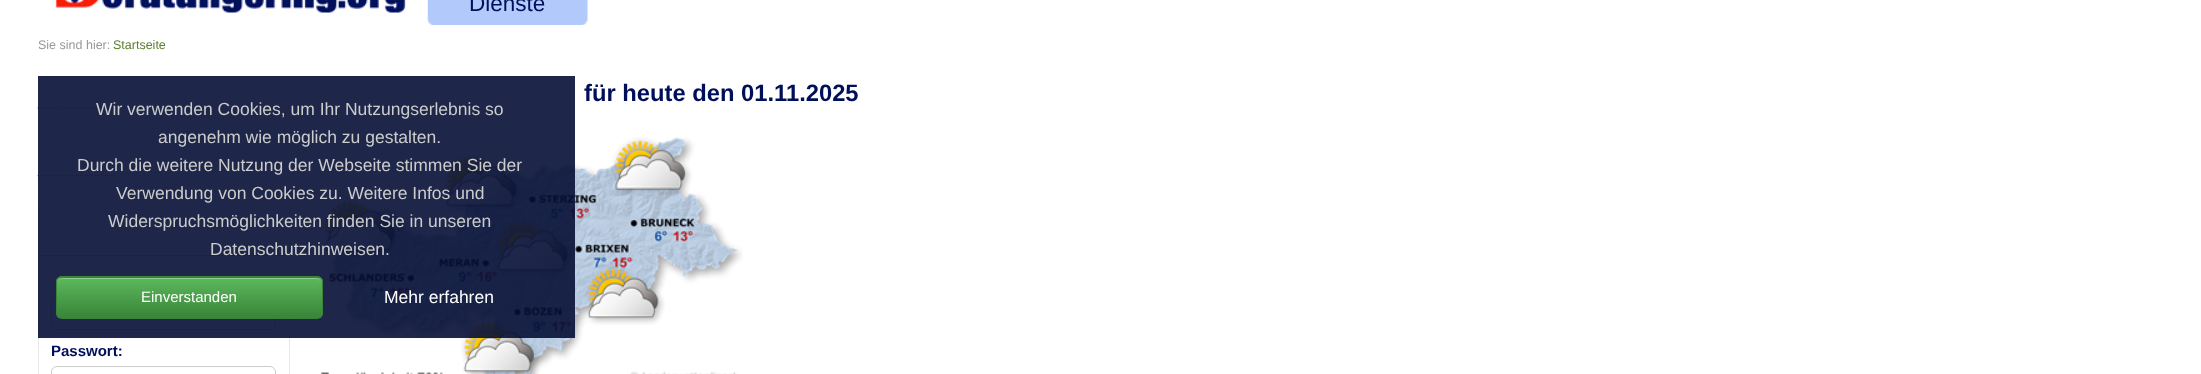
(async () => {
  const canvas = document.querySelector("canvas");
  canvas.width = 2201;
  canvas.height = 374;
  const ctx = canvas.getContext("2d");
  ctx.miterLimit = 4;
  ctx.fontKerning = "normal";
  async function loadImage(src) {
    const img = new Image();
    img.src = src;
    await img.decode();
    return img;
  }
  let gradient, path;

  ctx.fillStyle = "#ffffff";
  ctx.fillRect(0, 0, 2201, 374);
  ctx.drawImage(await loadImage("img/2.png"), 427, 0, 161, 25);
  ctx.drawImage(await loadImage("img/1.png"), 55, 0, 373, 22);
  ctx.drawImage(await loadImage("img/3.png"), 321, 137, 422, 237);
  ctx.drawImage(await loadImage("img/4.png"), 37, 107, 76, 2);
  ctx.drawImage(await loadImage("img/5.png"), 37, 175, 76, 2);
  ctx.beginPath();
  ctx.roundRect(38.5, 201.5, 251, 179, 5.5);
  ctx.strokeStyle = "#e6e6e6";
  ctx.stroke();
  ctx.fillStyle = "#cccccc";
  ctx.fillRect(39, 255, 250, 1);
  ctx.beginPath();
  ctx.roundRect(51.5, 295.5, 224, 34, 5.5);
  ctx.strokeStyle = "#cdcdcd";
  ctx.stroke();
  ctx.beginPath();
  ctx.roundRect(51.5, 366.5, 224, 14, 5.5);
  ctx.stroke();
  ctx.fillStyle = "rgba(6, 15, 53, 0.9)";
  ctx.fillRect(38, 76, 537, 262);
  ctx.save();
  ctx.beginPath();
  ctx.roundRect(56, 276, 267, 43, 6);
  ctx.clip();
  gradient = ctx.createLinearGradient(189, 238, 189, 278);
  gradient.addColorStop(0, "#5cb85c");
  gradient.addColorStop(1, "#398439");
  ctx.fillStyle = gradient;
  ctx.fillRect(56, 276, 267, 2);
  gradient = ctx.createLinearGradient(189, 278, 189, 318);
  gradient.addColorStop(0, "#5cb85c");
  gradient.addColorStop(1, "#398439");
  ctx.fillStyle = gradient;
  ctx.fillRect(56, 278, 267, 40);
  ctx.restore();
  ctx.fillStyle = "#8dcd8d";
  path = new Path2D("M62 279H316C319 279 321 281 321 284C321 281 319 278 316 278H63C60 278 58 281 58 284C58 281 60 279 62 279Z");
  ctx.fill(path);
  ctx.beginPath();
  ctx.roundRect(56.5, 276.5, 266, 42, 5.5);
  ctx.strokeStyle = "#398439";
  ctx.stroke();
  ctx.font = "22.5px Liberation Sans";
  ctx.fillStyle = "#000f59";
  ctx.fillText("Dienste", 469, 11);
  ctx.font = "12.5px Liberation Sans";
  ctx.fillStyle = "#999999";
  ctx.fillText("Sie sind hier:", 38, 49);
  ctx.fillStyle = "#5c802e";
  ctx.fillText("Startseite", 113, 49);
  ctx.font = "bold 23.75px Liberation Sans";
  ctx.fillStyle = "#000f59";
  ctx.fillText("für heute den 01.11.2025", 584, 101);
  ctx.font = "bold 15px Liberation Sans";
  ctx.fillText("Passwort:", 51, 356);
  ctx.font = "17.5px Liberation Sans";
  ctx.fillStyle = "#cccccc";
  for (const [text, x, y] of [
    ["Wir verwenden Cookies, um Ihr Nutzungserlebnis so", 96, 115],
    ["angenehm wie möglich zu gestalten.", 158, 143],
    ["Durch die weitere Nutzung der Webseite stimmen Sie der", 77, 171],
    ["Verwendung von Cookies zu. Weitere Infos und", 116, 199],
    ["Widerspruchsmöglichkeiten finden Sie in unseren", 108, 227],
    ["Datenschutzhinweisen.", 210, 255],
  ]) {
    ctx.fillText(text, x, y);
  }
  ctx.font = "15px Liberation Sans";
  ctx.fillStyle = "#ffffff";
  ctx.fillText("Einverstanden", 141, 302);
  ctx.font = "17.5px Liberation Sans";
  ctx.fillText("Mehr erfahren", 384, 303);
})();
